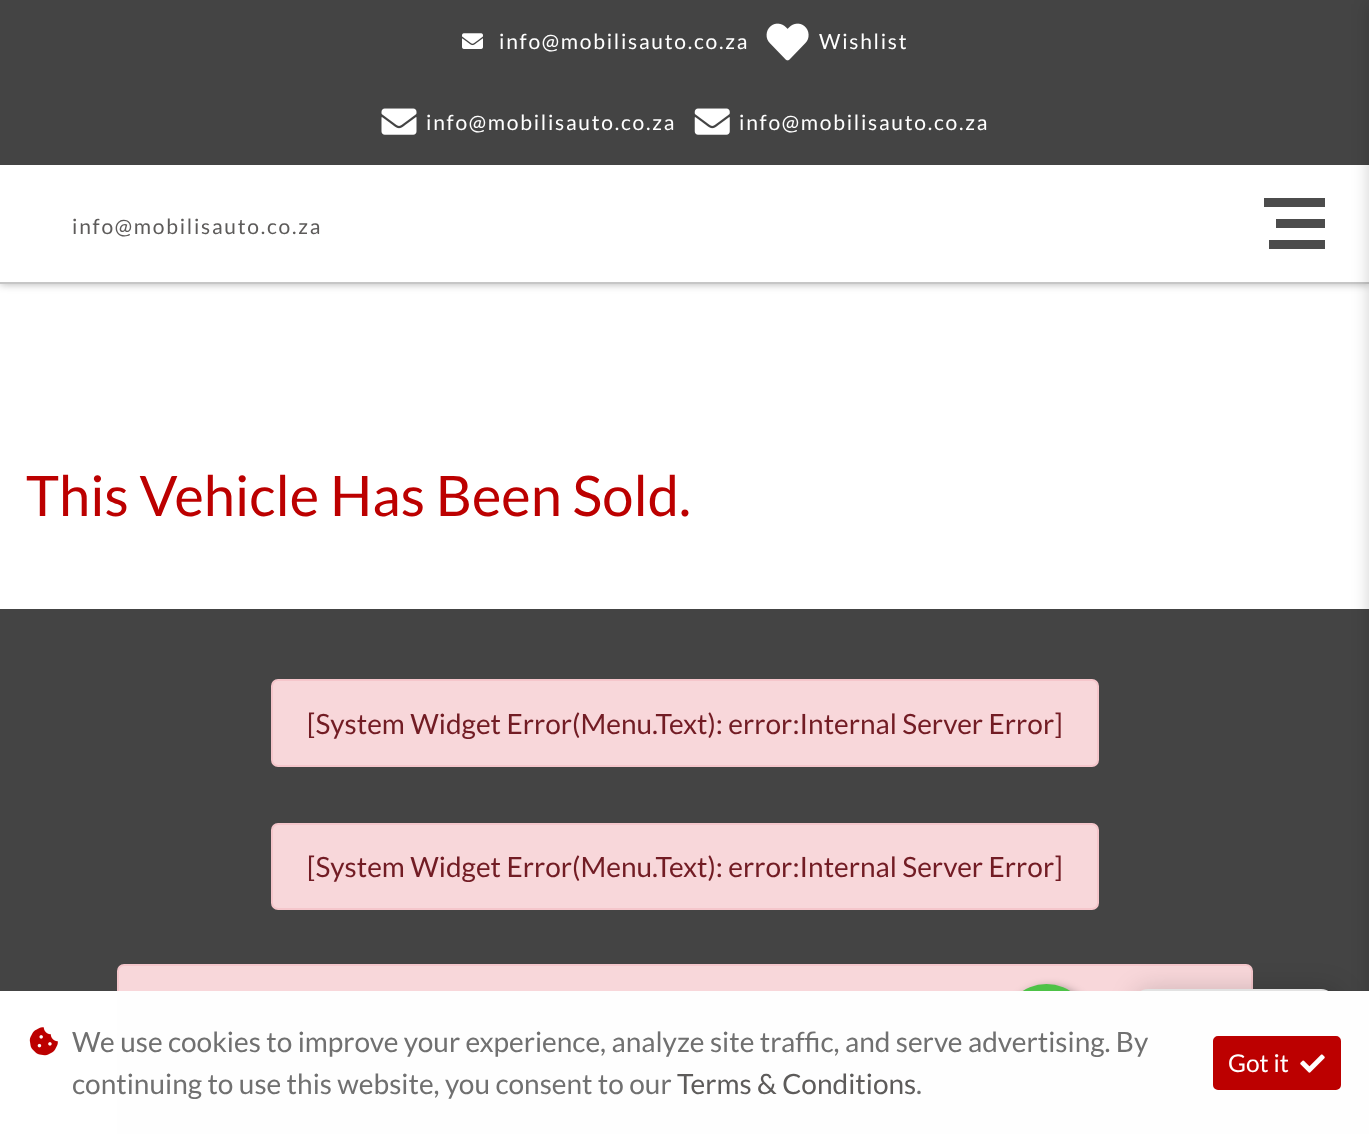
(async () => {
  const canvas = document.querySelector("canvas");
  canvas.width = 1369;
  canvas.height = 1134;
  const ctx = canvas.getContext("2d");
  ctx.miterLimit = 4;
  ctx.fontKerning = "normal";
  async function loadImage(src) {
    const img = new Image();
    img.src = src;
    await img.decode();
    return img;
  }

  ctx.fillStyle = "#ffffff";
  ctx.fillRect(0, 0, 1369, 1134);
  ctx.fillStyle = "rgba(0, 0, 0, 0.3)";
  ctx.filter = "blur(4.5px)";
  ctx.beginPath();
  ctx.rect(0, 0, 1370, 284);
  ctx.fill();
  ctx.filter = "none";
  ctx.fillStyle = "#444444";
  ctx.fillRect(0, 0, 1369, 165);
  ctx.drawImage(await loadImage("img/1.png"), 462, 33, 21, 16);
  ctx.drawImage(await loadImage("img/2.png"), 766, 23, 43, 38);
  ctx.drawImage(await loadImage("img/3.png"), 381, 108, 36, 27);
  ctx.drawImage(await loadImage("img/4.png"), 694, 108, 36, 27);
  for (const [x, y, w, h, color] of [
    [0, 165, 1369, 117, "#ffffff"],
    [0, 282, 1369, 2, "#c6c6c6"],
    [1264, 198, 61, 9, "#4c4c4c"],
    [1276, 219, 49, 9, "#4c4c4c"],
    [1269, 240, 56, 9, "#4c4c4c"],
    [0, 609, 1369, 382, "#444444"],
  ]) {
    ctx.fillStyle = color;
    ctx.fillRect(x, y, w, h);
  }
  ctx.fillStyle = "rgba(0, 0, 0, 0.2)";
  ctx.filter = "blur(9px)";
  ctx.beginPath();
  ctx.rect(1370, 4, 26, 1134);
  ctx.fill();
  ctx.filter = "none";
  ctx.fillStyle = "#f8d7da";
  ctx.beginPath();
  ctx.roundRect(272, 680, 826, 86, 6);
  ctx.fill();
  ctx.strokeStyle = "#f5c6cb";
  ctx.lineWidth = 2;
  ctx.stroke();
  ctx.beginPath();
  ctx.roundRect(272, 824, 826, 85, 6);
  ctx.fill();
  ctx.stroke();
  ctx.beginPath();
  ctx.roundRect(118, 965, 1134, 86, 6);
  ctx.fill();
  ctx.stroke();
  ctx.fillStyle = "rgba(0, 0, 0, 0.4)";
  ctx.filter = "blur(5px)";
  ctx.beginPath();
  ctx.roundRect(1006, 987, 88, 88, 44);
  ctx.fill();
  ctx.filter = "none";
  ctx.fillStyle = "#4dc247";
  ctx.beginPath();
  ctx.arc(1046.5, 1027.5, 43.5, 0, Math.PI * 2);
  ctx.fill();
  ctx.fillStyle = "rgba(0, 0, 0, 0.17)";
  ctx.filter = "blur(13px)";
  ctx.beginPath();
  ctx.roundRect(1134, 989, 208, 86, 18);
  ctx.fill();
  ctx.filter = "none";
  ctx.beginPath();
  ctx.roundRect(1135, 990, 199, 77, 13);
  ctx.strokeStyle = "#e2e2e2";
  ctx.stroke();
  ctx.fillStyle = "#fefefe";
  ctx.fillRect(117, 991, 1252, 143);
  ctx.drawImage(await loadImage("img/5.png"), 29, 1027, 29, 29);
  ctx.fillStyle = "#bc0000";
  ctx.beginPath();
  ctx.roundRect(1214, 1037, 126, 52, 4);
  ctx.fill();
  ctx.strokeStyle = "#bc0000";
  ctx.stroke();
  ctx.drawImage(await loadImage("img/6.png"), 1300, 1054, 25, 19);
  ctx.letterSpacing = "1.75px";
  ctx.font = "21px Lato";
  ctx.fillStyle = "#ffffff";
  for (const [text, x, y] of [
    ["info@mobilisauto.co.za", 499, 49],
    ["Wishlist", 819, 49],
    ["info@mobilisauto.co.za", 426, 130],
    ["info@mobilisauto.co.za", 739, 130],
  ]) {
    ctx.fillText(text, x, y);
  }
  ctx.fillStyle = "#5d5b5a";
  ctx.fillText("info@mobilisauto.co.za", 72, 234);
  ctx.letterSpacing = "0px";
  ctx.font = "56px Lato";
  ctx.fillStyle = "#bc0000";
  ctx.fillText("This Vehicle Has Been Sold.", 26, 516);
  ctx.font = "28px Lato";
  ctx.fillStyle = "#721c24";
  ctx.fillText("[System Widget Error(Menu.Text): error:Internal Server Error]", 307, 734);
  ctx.fillText("[System Widget Error(Menu.Text): error:Internal Server Error]", 307, 877);
  ctx.fillStyle = "#707070";
  ctx.fillText("We use cookies to improve your experience, analyze site traffic, and serve advertising. By", 72, 1052);
  ctx.fillText("continuing to use this website, you consent to our", 72, 1094);
  ctx.fillStyle = "#5d5b5a";
  ctx.fillText("Terms & Conditions", 677, 1094);
  ctx.fillStyle = "#707070";
  ctx.fillText(".", 916, 1094);
  ctx.font = "24.5px Lato";
  ctx.fillStyle = "#ffffff";
  ctx.fillText("Got it", 1228, 1072);
})();
